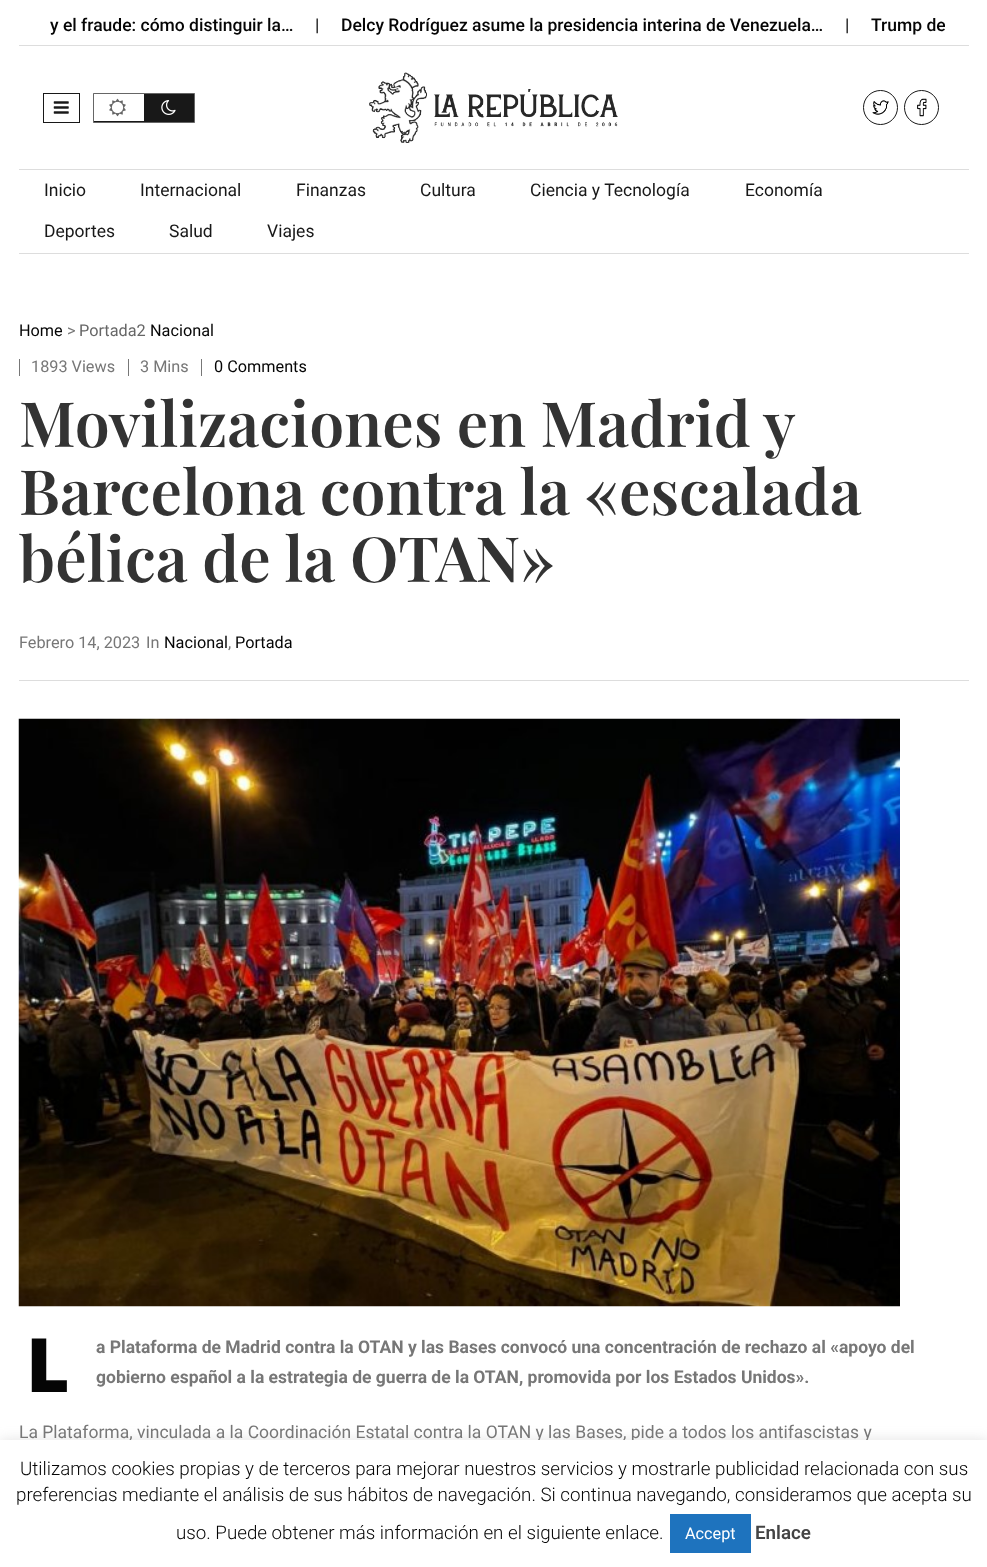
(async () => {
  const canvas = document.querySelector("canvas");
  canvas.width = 987;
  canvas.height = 1567;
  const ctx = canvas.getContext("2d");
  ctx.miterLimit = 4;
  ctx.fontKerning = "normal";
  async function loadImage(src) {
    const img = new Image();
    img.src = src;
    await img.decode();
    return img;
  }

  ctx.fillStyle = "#ffffff";
  ctx.fillRect(0, 0, 987, 1567);
  ctx.fillStyle = "#dddddd";
  ctx.fillRect(19, 45, 950, 1);
  ctx.strokeStyle = "#181818";
  ctx.strokeRect(43.5, 93.5, 36, 29);
  ctx.drawImage(await loadImage("img/1.png"), 53, 101, 16, 13);
  ctx.fillStyle = "#181818";
  ctx.beginPath();
  ctx.rect(93.5, 93.5, 101, 29);
  ctx.fill();
  ctx.strokeStyle = "#666666";
  ctx.stroke();
  ctx.fillStyle = "#ffffff";
  ctx.fillRect(94, 94, 50, 27);
  ctx.drawImage(await loadImage("img/2.png"), 109, 98, 17, 19);
  ctx.drawImage(await loadImage("img/3.png"), 161, 100, 15, 15);
  ctx.drawImage(await loadImage("img/4.png"), 369, 72, 249, 71);
  ctx.beginPath();
  ctx.arc(880.5, 107.5, 17, 0, Math.PI * 2);
  ctx.strokeStyle = "#181818";
  ctx.stroke();
  ctx.drawImage(await loadImage("img/5.png"), 872, 100, 17, 15);
  ctx.beginPath();
  ctx.arc(921.5, 107.5, 17, 0, Math.PI * 2);
  ctx.stroke();
  ctx.drawImage(await loadImage("img/6.png"), 917, 98, 10, 19);
  for (const [x, y, w, h, color] of [
    [19, 169, 950, 1, "#dddddd"],
    [19, 253, 950, 1, "#dddddd"],
    [19, 680, 950, 1, "#dddddd"],
    [19, 359, 1, 17, "#777777"],
    [128, 359, 1, 17, "#777777"],
    [201, 359, 1, 17, "#777777"],
  ]) {
    ctx.fillStyle = color;
    ctx.fillRect(x, y, w, h);
  }
  ctx.drawImage(await loadImage("img/7.png"), 18, 718, 882, 589);
  ctx.fillStyle = "rgba(172, 171, 171, 0.3)";
  ctx.filter = "blur(6px)";
  ctx.beginPath();
  ctx.rect(0, 1439, 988, 127);
  ctx.fill();
  ctx.filter = "none";
  ctx.font = "500 17.5px Roboto";
  ctx.fillStyle = "#050505";
  ctx.fillText("y el fraude: cómo distinguir la…", 50, 31);
  ctx.fillStyle = "#181818";
  ctx.fillText("|", 315, 31);
  ctx.fillStyle = "#050505";
  ctx.fillText("Delcy Rodríguez asume la presidencia interina de Venezuela…", 341, 31);
  ctx.fillStyle = "#181818";
  ctx.fillText("|", 845, 31);
  ctx.save();
  ctx.beginPath();
  ctx.rect(43, 3, 902, 42);
  ctx.clip();
  ctx.fillStyle = "#050505";
  ctx.fillText("Trump de", 871, 31);
  ctx.restore();
  ctx.font = "17.5px Roboto";
  for (const [text, x, y] of [
    ["Inicio", 44, 196],
    ["Internacional", 140, 196],
    ["Finanzas", 296, 196],
    ["Cultura", 420, 196],
    ["Ciencia y Tecnología", 530, 196],
    ["Economía", 745, 196],
    ["Deportes", 44, 237],
    ["Salud", 169, 237],
    ["Viajes", 267, 237],
  ]) {
    ctx.fillText(text, x, y);
  }
  ctx.font = "16.25px Roboto";
  ctx.fillStyle = "#050505";
  ctx.fillText("Home", 19, 336);
  ctx.fillStyle = "#777777";
  ctx.fillText(">", 67, 336);
  ctx.fillStyle = "#666666";
  ctx.fillText("Portada2", 79, 336);
  ctx.fillStyle = "#050505";
  ctx.fillText("Nacional", 150, 336);
  ctx.fillStyle = "#777777";
  ctx.fillText("1893 Views", 31, 372);
  ctx.fillText("3 Mins", 140, 372);
  ctx.fillStyle = "#050505";
  ctx.fillText("0 Comments", 214, 372);
  ctx.wordSpacing = "-0.5px";
  ctx.font = "600 62.5px Playfair Display";
  ctx.fillStyle = "#333333";
  ctx.fillText("Movilizaciones en Madrid y", 19, 447);
  ctx.wordSpacing = "0px";
  ctx.fillText("Barcelona contra la «escalada", 19, 515);
  ctx.fillText("bélica de la OTAN»", 19, 582);
  ctx.font = "16.25px Roboto";
  ctx.fillStyle = "#777777";
  ctx.fillText("Febrero 14, 2023", 19, 648);
  ctx.fillText("In", 146, 648);
  ctx.fillStyle = "#050505";
  ctx.fillText("Nacional", 164, 648);
  ctx.fillText("Portada", 235, 648);
  ctx.fillStyle = "#777777";
  ctx.fillText(",", 228, 648);
  ctx.font = "900 75px Noto Sans";
  ctx.fillStyle = "#050505";
  ctx.fillText("L", 26, 1392);
  ctx.font = "bold 17.5px Roboto";
  ctx.fillStyle = "#777777";
  ctx.fillText("a Plataforma de Madrid contra la OTAN y las Bases convocó una concentración de rechazo al «apoyo del", 96, 1353);
  ctx.fillText("gobierno español a la estrategia de guerra de la OTAN, promovida por los Estados Unidos».", 96, 1383);
  ctx.font = "17.5px Roboto";
  ctx.fillText("La Plataforma, vinculada a la Coordinación Estatal contra la OTAN y las Bases, pide a todos los antifascistas y", 19, 1438);
  ctx.fillStyle = "#ffffff";
  ctx.fillRect(0, 1440, 987, 127);
  ctx.font = "300 18.75px Roboto";
  ctx.fillStyle = "#050505";
  for (const [text, x, y] of [
    ["Utilizamos cookies propias y de terceros para mejorar nuestros servicios y mostrarle publicidad relacionada con sus", 20, 1475],
    ["preferencias mediante el análisis de sus hábitos de navegación. Si continua navegando, consideramos que acepta su", 16, 1501],
    ["uso. Puede obtener más información en el siguiente enlace.", 176, 1539],
  ]) {
    ctx.fillText(text, x, y);
  }
  ctx.fillStyle = "#1e73be";
  ctx.fillRect(670, 1514, 81, 39);
  ctx.font = "16.25px Roboto";
  ctx.fillStyle = "#ffffff";
  ctx.fillText("Accept", 685, 1539);
  ctx.font = "600 18.75px Roboto";
  ctx.fillStyle = "#444444";
  ctx.fillText("Enlace", 755, 1539);
})();
